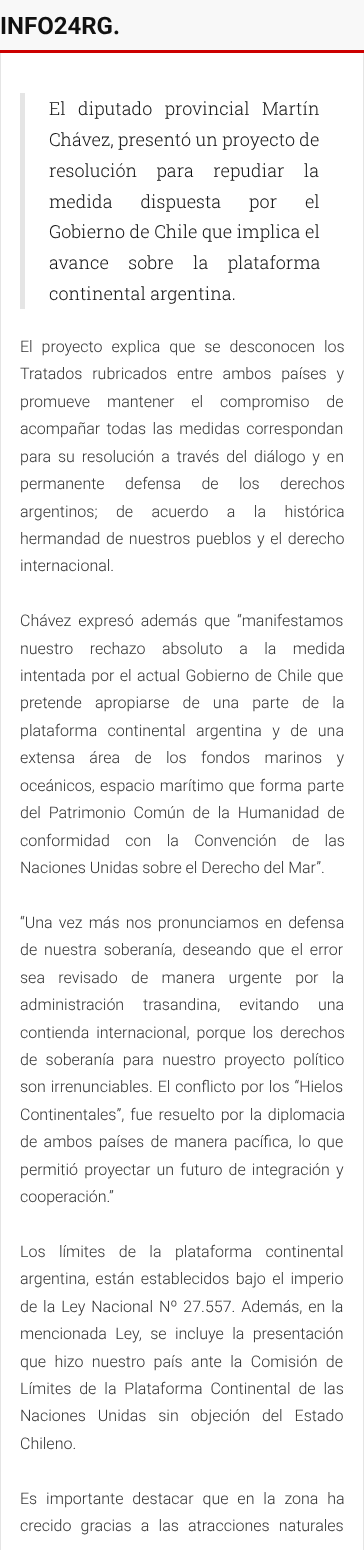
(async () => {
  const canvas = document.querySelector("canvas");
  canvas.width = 364;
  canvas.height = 1550;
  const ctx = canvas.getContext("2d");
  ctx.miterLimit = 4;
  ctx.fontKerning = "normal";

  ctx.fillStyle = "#ffffff";
  ctx.fillRect(0, 0, 364, 1550);
  ctx.strokeStyle = "#e5e5e5";
  ctx.strokeRect(0.5, -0.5, 363, 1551);
  for (const [x, y, w, h, color] of [
    [0, 0, 364, 50, "#f8f8f8"],
    [0, 50, 364, 3, "#cc0000"],
    [20, 93, 5, 216, "#e5e5e5"],
  ]) {
    ctx.fillStyle = color;
    ctx.fillRect(x, y, w, h);
  }
  ctx.font = "bold 24px Roboto";
  ctx.fillStyle = "#111111";
  ctx.fillText("INFO24RG.", 0, 34);
  ctx.wordSpacing = "8px";
  ctx.font = "300 18px Roboto Slab";
  ctx.fillText("El diputado provincial Martín", 49, 115);
  ctx.wordSpacing = "0px";
  ctx.fillText("Chávez, presentó un proyecto de", 49, 146);
  ctx.wordSpacing = "15px";
  ctx.fillText("resolución para repudiar la", 49, 177);
  ctx.wordSpacing = "23.5px";
  ctx.fillText("medida dispuesta por el", 49, 208);
  ctx.wordSpacing = "0.25px";
  ctx.fillText("Gobierno de Chile que implica el", 49, 238);
  ctx.wordSpacing = "15px";
  ctx.fillText("avance sobre la plataforma", 49, 269);
  ctx.wordSpacing = "0px";
  ctx.fillText("continental argentina.", 49, 300);
  ctx.wordSpacing = "5px";
  ctx.font = "300 16px Roboto";
  ctx.fillStyle = "#333333";
  ctx.fillText("El proyecto explica que se desconocen los", 20, 352);
  ctx.wordSpacing = "6px";
  ctx.fillText("Tratados rubricados entre ambos países y", 20, 379);
  ctx.wordSpacing = "13px";
  ctx.fillText("promueve mantener el compromiso de", 20, 407);
  ctx.wordSpacing = "2.5px";
  ctx.fillText("acompañar todas las medidas correspondan", 20, 434);
  ctx.wordSpacing = "3px";
  ctx.fillText("para su resolución a través del diálogo y en", 20, 462);
  ctx.wordSpacing = "16.5px";
  ctx.fillText("permanente defensa de los derechos", 20, 489);
  ctx.wordSpacing = "14.5px";
  ctx.fillText("argentinos; de acuerdo a la histórica", 20, 517);
  ctx.wordSpacing = "1.75px";
  ctx.fillText("hermandad de nuestros pueblos y el derecho", 20, 544);
  ctx.wordSpacing = "0px";
  ctx.fillText("internacional.", 20, 571);
  ctx.wordSpacing = "3px";
  ctx.fillText("Chávez expresó además que “manifestamos", 20, 626);
  ctx.wordSpacing = "12.5px";
  ctx.fillText("nuestro rechazo absoluto a la medida", 20, 654);
  ctx.wordSpacing = "1.5px";
  ctx.fillText("intentada por el actual Gobierno de Chile que", 20, 681);
  ctx.wordSpacing = "9.25px";
  ctx.fillText("pretende apropiarse de una parte de la", 20, 708);
  ctx.wordSpacing = "6.5px";
  ctx.fillText("plataforma continental argentina y de una", 20, 736);
  ctx.wordSpacing = "10.5px";
  ctx.fillText("extensa área de los fondos marinos y", 20, 763);
  ctx.wordSpacing = "1.25px";
  ctx.fillText("oceánicos, espacio marítimo que forma parte", 20, 791);
  ctx.wordSpacing = "4px";
  ctx.fillText("del Patrimonio Común de la Humanidad de", 20, 818);
  ctx.wordSpacing = "11.5px";
  ctx.fillText("conformidad con la Convención de las", 20, 846);
  ctx.wordSpacing = "0px";
  ctx.fillText("Naciones Unidas sobre el Derecho del Mar”.", 20, 873);
  ctx.wordSpacing = "2.25px";
  ctx.fillText("“Una vez más nos pronunciamos en defensa", 20, 928);
  ctx.wordSpacing = "3px";
  ctx.fillText("de nuestra soberanía, deseando que el error", 20, 955);
  ctx.wordSpacing = "9.5px";
  ctx.fillText("sea revisado de manera urgente por la", 20, 983);
  ctx.wordSpacing = "15px";
  ctx.fillText("administración trasandina, evitando una", 20, 1010);
  ctx.wordSpacing = "3px";
  ctx.fillText("contienda internacional, porque los derechos", 20, 1038);
  ctx.wordSpacing = "4.5px";
  ctx.fillText("de soberanía para nuestro proyecto político", 20, 1065);
  ctx.wordSpacing = "1px";
  ctx.fillText("son irrenunciables. El conflicto por los “Hielos", 20, 1092);
  ctx.wordSpacing = "2px";
  ctx.fillText("Continentales”, fue resuelto por la diplomacia", 20, 1120);
  ctx.wordSpacing = "2.5px";
  ctx.fillText("de ambos países de manera pacífica, lo que", 20, 1147);
  ctx.wordSpacing = "2.25px";
  ctx.fillText("permitió proyectar un futuro de integración y", 20, 1175);
  ctx.wordSpacing = "0px";
  ctx.fillText("cooperación.”", 20, 1202);
  ctx.wordSpacing = "9.5px";
  ctx.fillText("Los límites de la plataforma continental", 20, 1257);
  ctx.wordSpacing = "2.5px";
  ctx.fillText("argentina, están establecidos bajo el imperio", 20, 1284);
  ctx.wordSpacing = "2px";
  ctx.fillText("de la Ley Nacional Nº 27.557. Además, en la", 20, 1312);
  ctx.wordSpacing = "4.5px";
  ctx.fillText("mencionada Ley, se incluye la presentación", 20, 1339);
  ctx.fillText("que hizo nuestro país ante la Comisión de", 20, 1367);
  ctx.wordSpacing = "4px";
  ctx.fillText("Límites de la Plataforma Continental de las", 20, 1394);
  ctx.wordSpacing = "8px";
  ctx.fillText("Naciones Unidas sin objeción del Estado", 20, 1421);
  ctx.wordSpacing = "0px";
  ctx.fillText("Chileno.", 20, 1449);
  ctx.wordSpacing = "5px";
  ctx.fillText("Es importante destacar que en la zona ha", 20, 1504);
  ctx.wordSpacing = "5.25px";
  ctx.fillText("crecido gracias a las atracciones naturales", 20, 1531);
})();
